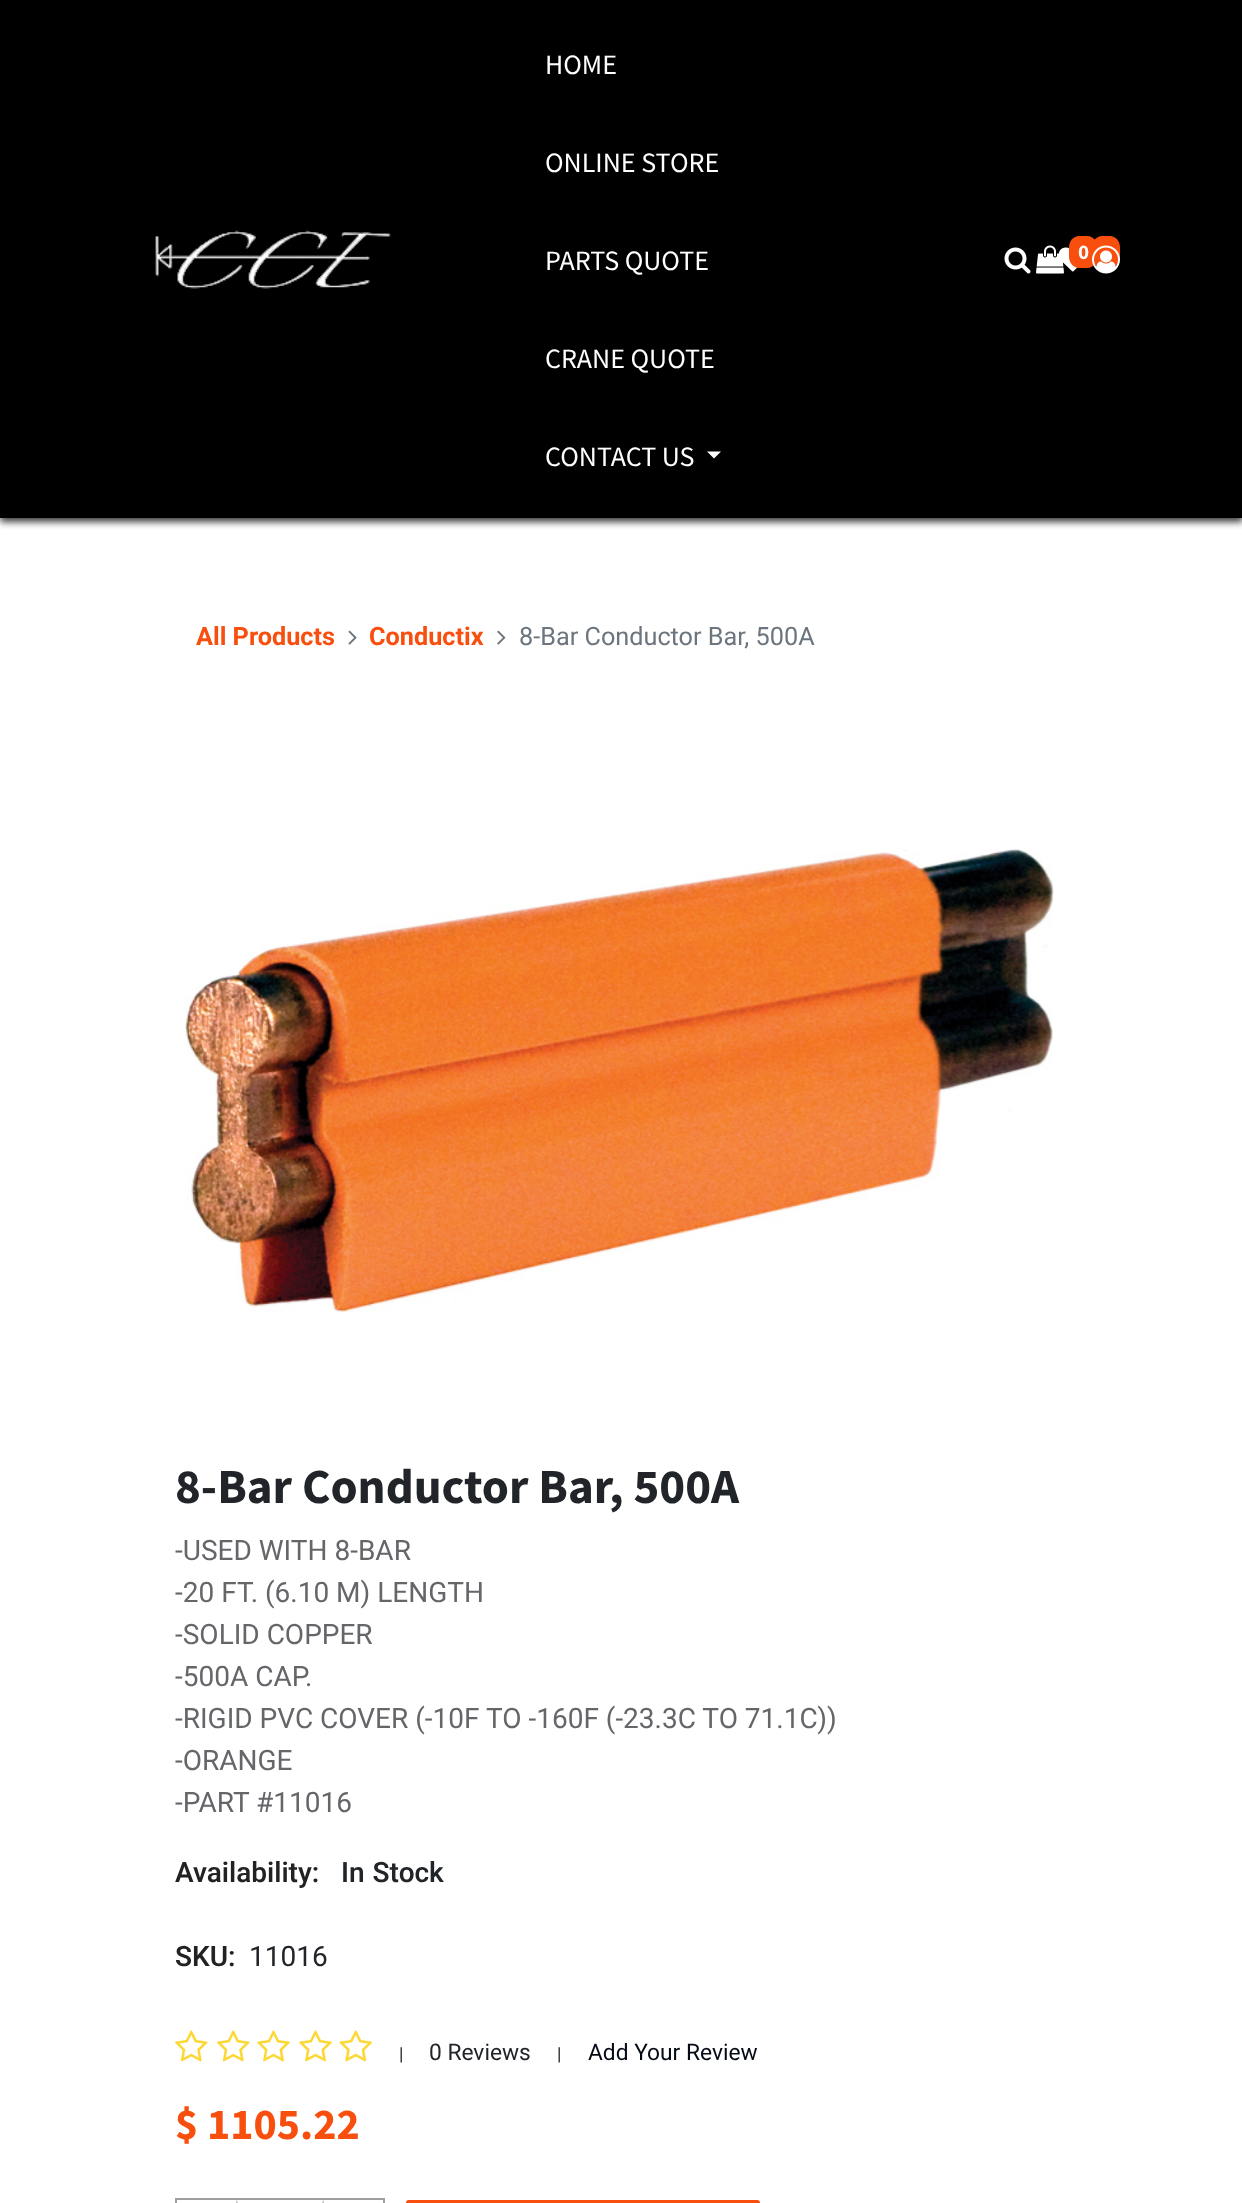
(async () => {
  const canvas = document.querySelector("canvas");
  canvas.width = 1242;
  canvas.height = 2203;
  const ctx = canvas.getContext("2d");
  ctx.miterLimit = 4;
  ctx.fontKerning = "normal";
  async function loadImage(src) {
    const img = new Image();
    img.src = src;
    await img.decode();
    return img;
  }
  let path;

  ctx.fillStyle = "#ffffff";
  ctx.fillRect(0, 0, 1242, 2203);
  ctx.fillStyle = "rgba(0, 0, 0, 0.76)";
  ctx.filter = "blur(3.5px)";
  ctx.beginPath();
  ctx.rect(0, 4, 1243, 518);
  ctx.fill();
  ctx.filter = "none";
  ctx.fillStyle = "#000000";
  ctx.fillRect(0, 0, 1242, 518);
  ctx.drawImage(await loadImage("img/1.png"), 155, 230, 236, 59);
  ctx.fillStyle = "#ffffff";
  path = new Path2D("M707 451.5H721L714 458.5Z");
  ctx.fill(path);
  ctx.drawImage(await loadImage("img/2.png"), 1058, 247, 20, 25);
  ctx.fillStyle = "#f84e0e";
  path = new Path2D("M1102 236H1110C1115.5 236 1120 241 1120 247.5V256.5C1120 263 1115.5 268 1110 268H1102C1096.5 268 1092 263 1092 256.5V247.5C1092 241 1096.5 236 1102 236Z");
  ctx.fill(path);
  ctx.drawImage(await loadImage("img/3.png"), 1004, 247, 27, 27);
  ctx.drawImage(await loadImage("img/4.png"), 1036, 245, 28, 29);
  path = new Path2D("M1079 236H1087.5C1093 236 1097 241 1097 247.5V256.5C1097 263 1093 268 1087.5 268H1079C1073.5 268 1069 263 1069 256.5V247.5C1069 241 1073.5 236 1079 236Z");
  ctx.fill(path);
  ctx.drawImage(await loadImage("img/5.png"), 1092, 245, 28, 29);
  ctx.drawImage(await loadImage("img/6.png"), 348, 630, 9, 15);
  ctx.drawImage(await loadImage("img/7.png"), 497, 630, 9, 15);
  ctx.drawImage(await loadImage("img/8.png"), 185, 849, 869, 464);
  ctx.drawImage(await loadImage("img/9.png"), 175, 2030, 33, 32);
  ctx.drawImage(await loadImage("img/9.png"), 217, 2030, 33, 32);
  ctx.drawImage(await loadImage("img/10.png"), 257, 2030, 33, 32);
  ctx.drawImage(await loadImage("img/10.png"), 299, 2030, 33, 32);
  ctx.drawImage(await loadImage("img/11.png"), 339, 2030, 33, 32);
  ctx.strokeStyle = "#9e9e9e";
  ctx.lineWidth = 2;
  ctx.strokeRect(176, 2199, 208, 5);
  ctx.fillStyle = "#cacaca";
  path = new Path2D("M324 2200V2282L322 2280V2202Z");
  ctx.fill(path);
  path = new Path2D("M236 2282V2200L238 2202V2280Z");
  ctx.fill(path);
  ctx.fillStyle = "#f84e0e";
  ctx.beginPath();
  ctx.roundRect(406, 2200, 354, 3, [9, 9, 0, 0]);
  ctx.fill();
  ctx.beginPath();
  ctx.roundRect(407, 2201, 352, 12, 8);
  ctx.strokeStyle = "#f84e0e";
  ctx.stroke();
  ctx.font = "28px Source Sans Pro";
  ctx.fillStyle = "#ffffff";
  for (const [text, x, y] of [
    ["HOME", 545, 74],
    ["ONLINE STORE", 545, 172],
    ["PARTS QUOTE", 545, 270],
    ["CRANE QUOTE", 545, 368],
    ["CONTACT US", 545, 466],
  ]) {
    ctx.fillText(text, x, y);
  }
  ctx.font = "bold 21px Source Sans Pro";
  ctx.fillText("0", 1078, 259);
  ctx.font = "bold 25.25px Roboto";
  ctx.fillStyle = "#f84e0e";
  ctx.fillText("All Products", 196, 645);
  ctx.fillText("Conductix", 369, 645);
  ctx.font = "25.25px Roboto";
  ctx.fillStyle = "#6c757d";
  ctx.fillText("8-Bar Conductor Bar, 500A", 519, 645);
  ctx.font = "bold 49px Source Sans Pro";
  ctx.fillStyle = "#212529";
  ctx.fillText("8-Bar Conductor Bar, 500A", 175, 1503);
  ctx.font = "28px Roboto";
  ctx.fillStyle = "#646669";
  for (const [text, x, y] of [
    ["-USED WITH 8-BAR", 175, 1560],
    ["-20 FT. (6.10 M) LENGTH", 175, 1602],
    ["-SOLID COPPER", 175, 1644],
    ["-500A CAP.", 175, 1686],
    ["-RIGID PVC COVER (-10F TO -160F (-23.3C TO 71.1C))", 175, 1728],
    ["-ORANGE", 175, 1770],
    ["-PART #11016", 175, 1812],
  ]) {
    ctx.fillText(text, x, y);
  }
  ctx.font = "500 28px Roboto";
  ctx.fillStyle = "#222222";
  ctx.fillText("Availability:", 175, 1882);
  ctx.wordSpacing = "1px";
  ctx.fillStyle = "#212529";
  ctx.fillText("In Stock", 341, 1882);
  ctx.wordSpacing = "0px";
  ctx.fillStyle = "#222222";
  ctx.fillText("SKU:", 175, 1966);
  ctx.font = "28px Roboto";
  ctx.fillStyle = "#212529";
  ctx.fillText("11016", 249, 1966);
  ctx.font = "18px Roboto";
  ctx.fillText("|", 399, 2060);
  ctx.font = "22.75px Roboto";
  ctx.fillText("0 Reviews", 429, 2060);
  ctx.font = "18px Roboto";
  ctx.fillText("|", 557, 2060);
  ctx.font = "22.75px Roboto";
  ctx.fillStyle = "#040a16";
  ctx.fillText("Add Your Review", 588, 2060);
  ctx.font = "bold 44px Source Sans Pro";
  ctx.fillStyle = "#f84e0e";
  ctx.fillText("$ 1105.22", 175, 2139);
})();
